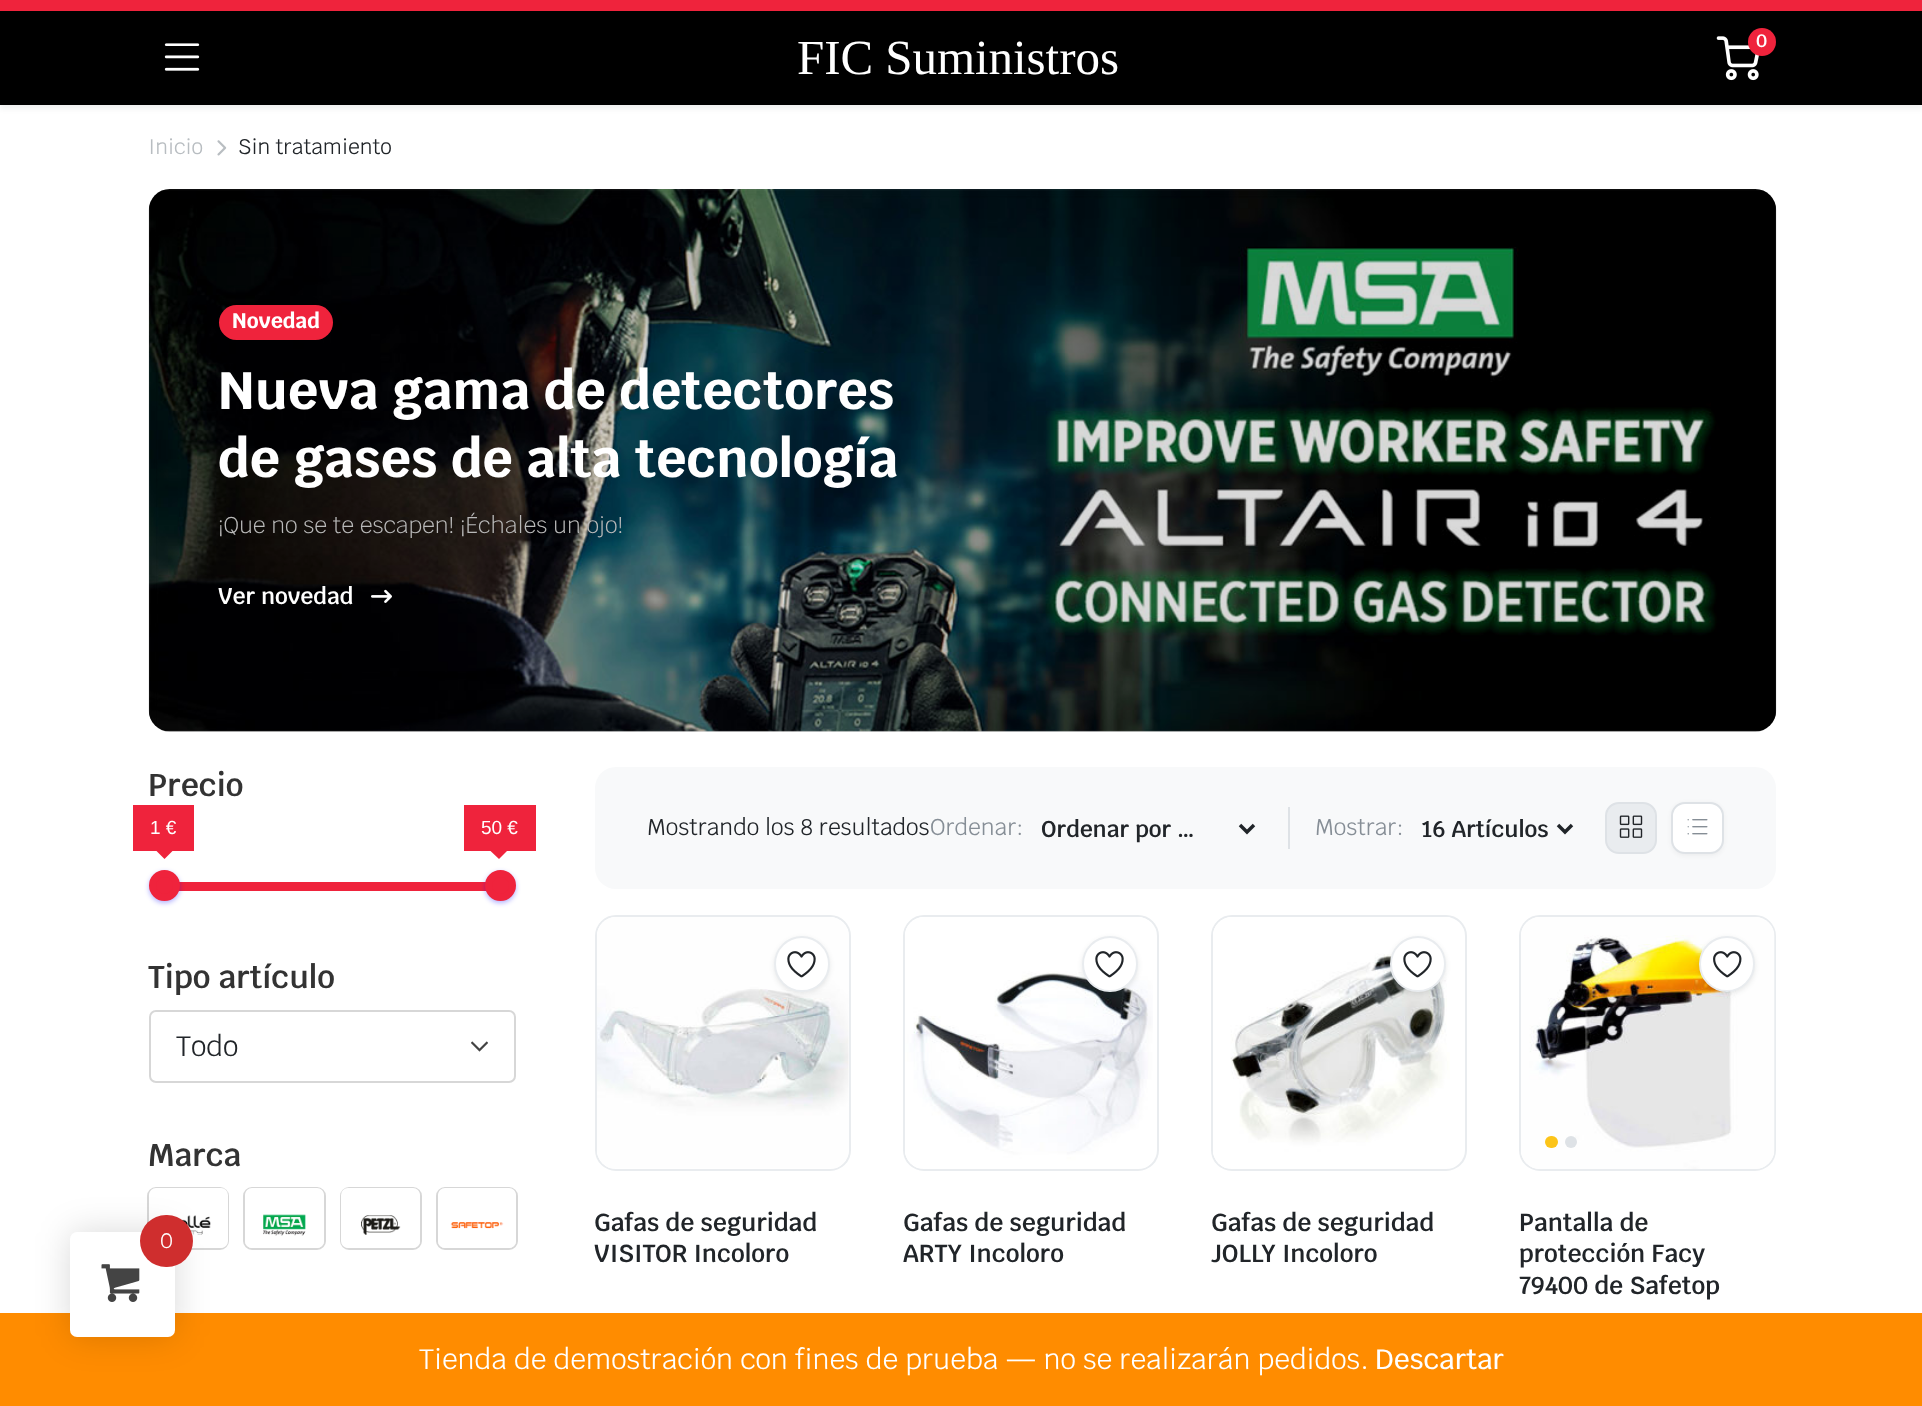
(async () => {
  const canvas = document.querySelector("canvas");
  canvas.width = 1922;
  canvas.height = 1406;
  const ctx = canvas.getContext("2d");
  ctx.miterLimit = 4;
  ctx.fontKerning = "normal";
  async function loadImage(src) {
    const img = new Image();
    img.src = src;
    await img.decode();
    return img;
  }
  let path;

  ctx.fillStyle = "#ffffff";
  ctx.fillRect(0, 0, 1922, 1406);
  ctx.fillStyle = "rgba(33, 37, 41, 0.07)";
  ctx.filter = "blur(2.5px)";
  ctx.beginPath();
  ctx.rect(0, 4, 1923, 105);
  ctx.fill();
  ctx.filter = "none";
  ctx.fillStyle = "#ef233c";
  ctx.fillRect(0, 0, 1922, 11);
  ctx.fillStyle = "#000000";
  ctx.fillRect(0, 11, 1922, 94);
  ctx.drawImage(await loadImage("img/1.png"), 164, 43, 36, 28);
  ctx.drawImage(await loadImage("img/2.png"), 1716, 36, 43, 45);
  ctx.fillStyle = "#ef233c";
  ctx.beginPath();
  ctx.arc(1762, 42, 14, 0, Math.PI * 2);
  ctx.fill();
  ctx.drawImage(await loadImage("img/3.png"), 217, 140, 10, 16);
  ctx.drawImage(await loadImage("img/4.png"), 148, 189, 1629, 543);
  ctx.fillStyle = "rgba(0, 0, 0, 0.15)";
  ctx.beginPath();
  ctx.roundRect(149, 189, 1627, 543, 21);
  ctx.fill();
  ctx.fillStyle = "#ef233c";
  ctx.beginPath();
  ctx.roundRect(219, 305, 114, 35, 17.5);
  ctx.fill();
  ctx.drawImage(await loadImage("img/5.png"), 371, 589, 21, 14);
  ctx.fillRect(133, 805, 61, 46);
  path = new Path2D("M156 850.5H173L164.5 859Z");
  ctx.fill(path);
  ctx.fillRect(464, 805, 72, 46);
  path = new Path2D("M490 850.5H507.5L499 859Z");
  ctx.fill(path);
  ctx.fillRect(179, 882, 307, 9);
  ctx.fillStyle = "rgba(0, 0, 255, 0.3)";
  ctx.filter = "blur(2.5px)";
  ctx.beginPath();
  ctx.roundRect(149, 872, 31, 31, 15.5);
  ctx.fill();
  ctx.filter = "none";
  ctx.fillStyle = "#ef233c";
  ctx.beginPath();
  ctx.arc(164.5, 885.5, 12, 0, Math.PI * 2);
  ctx.fill();
  ctx.strokeStyle = "#ef233c";
  ctx.lineWidth = 7;
  ctx.stroke();
  ctx.fillStyle = "rgba(0, 0, 255, 0.3)";
  ctx.filter = "blur(2.5px)";
  ctx.beginPath();
  ctx.roundRect(485, 872, 31, 31, 15.5);
  ctx.fill();
  ctx.filter = "none";
  ctx.fillStyle = "#ef233c";
  ctx.beginPath();
  ctx.arc(500.5, 885.5, 12, 0, Math.PI * 2);
  ctx.fill();
  ctx.stroke();
  ctx.beginPath();
  ctx.roundRect(150, 1011, 365, 71, 6);
  ctx.strokeStyle = "#d7d7d7";
  ctx.lineWidth = 2;
  ctx.stroke();
  ctx.drawImage(await loadImage("img/6.png"), 471, 1041, 17, 11);
  ctx.beginPath();
  ctx.roundRect(148, 1188, 80, 61, 8);
  ctx.stroke();
  ctx.fillStyle = "#ffffff";
  ctx.beginPath();
  ctx.roundRect(149, 1188, 79, 60, 7);
  ctx.fill();
  ctx.drawImage(await loadImage("img/7.png"), 167, 1215, 44, 20);
  ctx.beginPath();
  ctx.roundRect(244, 1188, 81, 61, 8);
  ctx.stroke();
  ctx.beginPath();
  ctx.roundRect(245, 1188, 79, 60, 7);
  ctx.fill();
  ctx.drawImage(await loadImage("img/8.png"), 263, 1214, 43, 22);
  ctx.beginPath();
  ctx.roundRect(341, 1188, 80, 61, 8);
  ctx.stroke();
  ctx.beginPath();
  ctx.roundRect(341, 1188, 79, 60, 7);
  ctx.fill();
  ctx.drawImage(await loadImage("img/9.png"), 361, 1215, 40, 20);
  ctx.beginPath();
  ctx.roundRect(437, 1188, 80, 61, 8);
  ctx.stroke();
  ctx.beginPath();
  ctx.roundRect(438, 1188, 78, 60, 7);
  ctx.fill();
  ctx.drawImage(await loadImage("img/10.png"), 450, 1222, 54, 7);
  ctx.fillStyle = "#f8f9fa";
  ctx.beginPath();
  ctx.roundRect(595, 767, 1181, 122, 21);
  ctx.fill();
  path = new Path2D("M1240 825L1247 832L1254 825");
  ctx.strokeStyle = "#212529";
  ctx.lineWidth = 3.5;
  ctx.stroke(path);
  ctx.fillStyle = "#dee2e6";
  ctx.fillRect(1288, 807, 2, 42);
  path = new Path2D("M1558 825L1565 832L1572 825");
  ctx.stroke(path);
  ctx.fillStyle = "#e9ecef";
  ctx.beginPath();
  ctx.roundRect(1606, 803, 50, 50, 13);
  ctx.fill();
  ctx.strokeStyle = "#dee2e6";
  ctx.lineWidth = 2;
  ctx.stroke();
  ctx.drawImage(await loadImage("img/11.png"), 1619, 815, 24, 23);
  ctx.fillStyle = "rgba(33, 37, 41, 0.05)";
  ctx.filter = "blur(2px)";
  ctx.beginPath();
  ctx.roundRect(1671, 803, 53, 53, 14);
  ctx.fill();
  ctx.filter = "none";
  ctx.fillStyle = "#ffffff";
  ctx.beginPath();
  ctx.roundRect(1672, 803, 51, 50, 13);
  ctx.fill();
  ctx.stroke();
  ctx.drawImage(await loadImage("img/12.png"), 1687, 819, 21, 16);
  ctx.beginPath();
  ctx.roundRect(596, 916, 254, 254, 20);
  ctx.strokeStyle = "#e9ecef";
  ctx.stroke();
  ctx.drawImage(await loadImage("img/13.png"), 597, 917, 252, 251);
  ctx.fillStyle = "rgba(33, 37, 41, 0.1)";
  ctx.filter = "blur(2.5px)";
  ctx.beginPath();
  ctx.roundRect(774, 938, 56, 56, 28);
  ctx.fill();
  ctx.filter = "none";
  ctx.fillStyle = "#ffffff";
  ctx.beginPath();
  ctx.arc(802, 964, 27, 0, Math.PI * 2);
  ctx.fill();
  ctx.stroke();
  ctx.drawImage(await loadImage("img/14.png"), 787, 951, 29, 27);
  ctx.beginPath();
  ctx.roundRect(904, 916, 254, 254, 20);
  ctx.stroke();
  ctx.drawImage(await loadImage("img/15.png"), 905, 917, 248, 251);
  ctx.fillStyle = "rgba(33, 37, 41, 0.1)";
  ctx.filter = "blur(2.5px)";
  ctx.beginPath();
  ctx.roundRect(1082, 938, 56, 56, 28);
  ctx.fill();
  ctx.filter = "none";
  ctx.fillStyle = "#ffffff";
  ctx.beginPath();
  ctx.arc(1110, 964, 27, 0, Math.PI * 2);
  ctx.fill();
  ctx.stroke();
  ctx.drawImage(await loadImage("img/14.png"), 1095, 951, 29, 27);
  ctx.beginPath();
  ctx.roundRect(1212, 916, 254, 254, 20);
  ctx.stroke();
  ctx.drawImage(await loadImage("img/16.png"), 1213, 917, 237, 251);
  ctx.fillStyle = "rgba(33, 37, 41, 0.1)";
  ctx.filter = "blur(2.5px)";
  ctx.beginPath();
  ctx.roundRect(1390, 938, 56, 56, 28);
  ctx.fill();
  ctx.filter = "none";
  ctx.fillStyle = "#ffffff";
  ctx.beginPath();
  ctx.arc(1418, 964, 27, 0, Math.PI * 2);
  ctx.fill();
  ctx.stroke();
  ctx.drawImage(await loadImage("img/14.png"), 1403, 951, 29, 27);
  ctx.beginPath();
  ctx.roundRect(1520, 916, 255, 254, 20);
  ctx.stroke();
  ctx.drawImage(await loadImage("img/17.png"), 1521, 917, 254, 252);
  ctx.fillStyle = "#fcc419";
  ctx.beginPath();
  ctx.roundRect(1545, 1136, 13, 12, 6);
  ctx.fill();
  ctx.fillStyle = "#dee2e6";
  ctx.beginPath();
  ctx.arc(1571, 1142, 6, 0, Math.PI * 2);
  ctx.fill();
  ctx.fillStyle = "rgba(33, 37, 41, 0.1)";
  ctx.filter = "blur(2.5px)";
  ctx.beginPath();
  ctx.roundRect(1699, 938, 56, 56, 28);
  ctx.fill();
  ctx.filter = "none";
  ctx.fillStyle = "#ffffff";
  ctx.beginPath();
  ctx.arc(1727, 964, 27, 0, Math.PI * 2);
  ctx.fill();
  ctx.stroke();
  ctx.drawImage(await loadImage("img/18.png"), 1713, 951, 29, 27);
  ctx.fillStyle = "#ff8c00";
  ctx.fillRect(0, 1313, 1922, 93);
  ctx.fillStyle = "rgba(0, 0, 0, 0.15)";
  ctx.filter = "blur(17.5px)";
  ctx.beginPath();
  ctx.roundRect(70, 1232, 105, 105, 7);
  ctx.fill();
  ctx.filter = "none";
  ctx.fillStyle = "#ffffff";
  ctx.beginPath();
  ctx.roundRect(70, 1232, 105, 105, 7);
  ctx.fill();
  ctx.fillStyle = "#cf2e2e";
  ctx.beginPath();
  ctx.roundRect(140, 1215, 53, 52, 26);
  ctx.fill();
  ctx.drawImage(await loadImage("img/19.png"), 101, 1264, 39, 38);
  ctx.letterSpacing = "-0.05px";
  ctx.font = "49px Liberation Serif";
  ctx.fillStyle = "#ffffff";
  ctx.fillText("FIC Suministros", 797, 74);
  ctx.font = "600 18px Krub";
  ctx.fillText("0", 1756, 47);
  ctx.font = "21px Krub";
  ctx.fillStyle = "#b8bdc1";
  ctx.fillText("Inicio", 148, 154);
  ctx.fillStyle = "#212529";
  ctx.fillText("Sin tratamiento", 238, 154);
  ctx.font = "bold 21px Krub";
  ctx.fillStyle = "#ffffff";
  ctx.fillText("Novedad", 232, 328);
  ctx.letterSpacing = "0px";
  ctx.font = "bold 52.5px Krub";
  ctx.fillText("Nueva gama de detectores", 218, 409);
  ctx.fillText("de gases de alta tecnología", 218, 477);
  ctx.letterSpacing = "-0.05px";
  ctx.font = "300 22.75px Krub";
  ctx.fillStyle = "#b9b9b9";
  ctx.fillText("¡Que no se te escapen! ¡Échales un ojo!", 218, 533);
  ctx.letterSpacing = "0px";
  ctx.font = "600 22.75px Krub";
  ctx.fillStyle = "#ffffff";
  ctx.fillText("Ver novedad", 218, 604);
  ctx.font = "600 31.5px Krub";
  ctx.fillStyle = "#333333";
  ctx.fillText("Precio", 148, 796);
  ctx.letterSpacing = "-0.05px";
  ctx.font = "19px Liberation Sans";
  ctx.fillStyle = "#ffffff";
  ctx.fillText("1 €", 150, 834);
  ctx.fillText("50 €", 481, 834);
  ctx.letterSpacing = "0px";
  ctx.font = "600 31.5px Krub";
  ctx.fillStyle = "#333333";
  ctx.fillText("Tipo artículo", 148, 988);
  ctx.letterSpacing = "-0.05px";
  ctx.font = "28px Krub";
  ctx.fillStyle = "#212529";
  ctx.fillText("Todo", 176, 1056);
  ctx.letterSpacing = "0px";
  ctx.font = "600 31.5px Krub";
  ctx.fillStyle = "#333333";
  ctx.fillText("Marca", 148, 1166);
  ctx.letterSpacing = "-0.05px";
  ctx.font = "22.75px Krub";
  ctx.fillStyle = "#212529";
  ctx.fillText("Mostrando los 8 resultados", 647, 835);
  ctx.fillStyle = "#868e96";
  ctx.fillText("Ordenar:", 930, 835);
  ctx.letterSpacing = "0px";
  ctx.font = "600 22.75px Krub";
  ctx.fillStyle = "#212529";
  ctx.fillText("Ordenar por …", 1041, 837);
  ctx.letterSpacing = "-0.05px";
  ctx.font = "22.75px Krub";
  ctx.fillStyle = "#868e96";
  ctx.fillText("Mostrar:", 1315, 835);
  ctx.letterSpacing = "0px";
  ctx.font = "600 22.75px Krub";
  ctx.fillStyle = "#212529";
  ctx.fillText("16 Artículos", 1422, 837);
  ctx.font = "600 24.5px Krub";
  for (const [text, x, y] of [
    ["Gafas de seguridad", 594, 1231],
    ["VISITOR Incoloro", 594, 1262],
    ["Gafas de seguridad", 903, 1231],
    ["ARTY Incoloro", 903, 1262],
    ["Gafas de seguridad", 1211, 1231],
    ["JOLLY Incoloro", 1211, 1262],
    ["Pantalla de", 1519, 1231],
    ["protección Facy", 1519, 1262],
    ["79400 de Safetop", 1519, 1294],
  ]) {
    ctx.fillText(text, x, y);
  }
  ctx.letterSpacing = "-0.05px";
  ctx.font = "21px Krub";
  ctx.fillStyle = "#ffffff";
  ctx.fillText("0", 160, 1248);
  ctx.font = "28px Krub";
  ctx.fillText("Tienda de demostración con fines de prueba — no se realizarán pedidos.", 419, 1369);
  ctx.font = "500 28px Krub";
  ctx.fillText("Descartar", 1375, 1369);
})();
